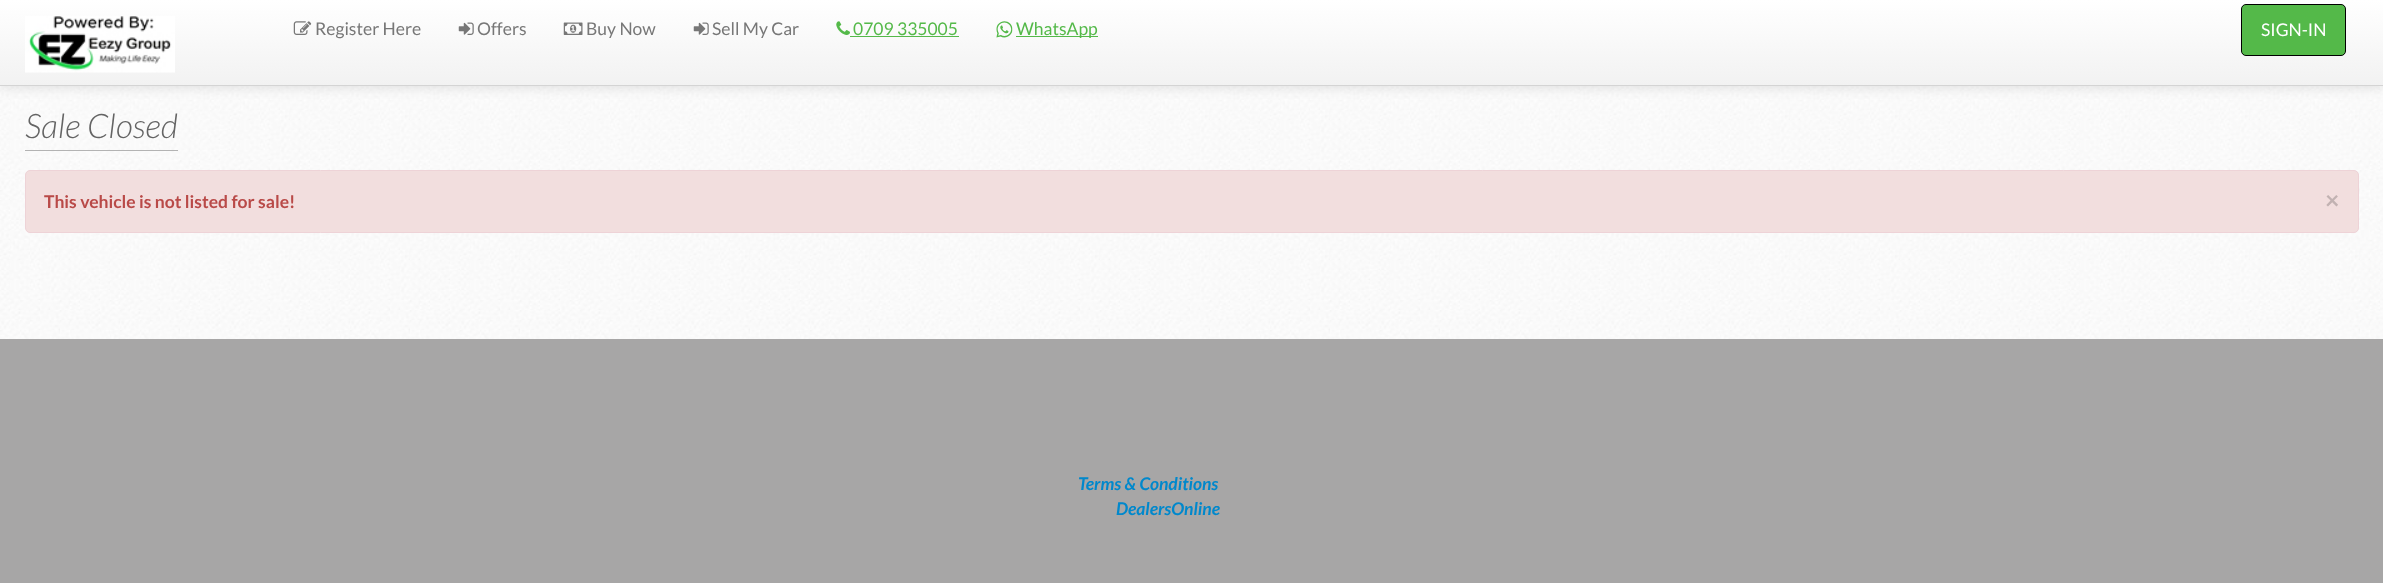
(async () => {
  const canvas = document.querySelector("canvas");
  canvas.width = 2383;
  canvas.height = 583;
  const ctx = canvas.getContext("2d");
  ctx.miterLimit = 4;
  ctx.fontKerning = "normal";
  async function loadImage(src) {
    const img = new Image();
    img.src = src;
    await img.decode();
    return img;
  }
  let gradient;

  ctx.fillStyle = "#ffffff";
  ctx.fillRect(0, 0, 2383, 583);
  ctx.drawImage(await loadImage("img/1.png"), 0, 86, 2383, 253);
  ctx.fillStyle = "rgba(0, 0, 0, 0.1)";
  ctx.filter = "blur(6px)";
  ctx.beginPath();
  ctx.rect(0, 1, 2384, 87);
  ctx.fill();
  ctx.filter = "none";
  gradient = ctx.createLinearGradient(1192, 0, 1192, 85);
  gradient.addColorStop(0, "#ffffff");
  gradient.addColorStop(1, "#f2f2f2");
  ctx.fillStyle = gradient;
  ctx.fillRect(0, 0, 2383, 85);
  ctx.fillStyle = "#d4d4d4";
  ctx.fillRect(0, 85, 2383, 1);
  ctx.drawImage(await loadImage("img/2.png"), 25, 16, 150, 57);
  ctx.drawImage(await loadImage("img/3.png"), 293, 21, 19, 14);
  ctx.drawImage(await loadImage("img/4.png"), 458, 22, 16, 13);
  ctx.drawImage(await loadImage("img/5.png"), 563, 22, 20, 13);
  ctx.drawImage(await loadImage("img/4.png"), 693, 22, 16, 13);
  ctx.drawImage(await loadImage("img/6.png"), 836, 21, 14, 14);
  ctx.fillStyle = "#54b949";
  ctx.fillRect(850, 36, 109, 1);
  ctx.drawImage(await loadImage("img/7.png"), 996, 21, 17, 17);
  ctx.fillRect(1016, 36, 82, 1);
  ctx.beginPath();
  ctx.roundRect(2241.5, 4.5, 104, 51, 4.5);
  ctx.fill();
  ctx.strokeStyle = "#000000";
  ctx.stroke();
  ctx.fillStyle = "#b3b3b3";
  ctx.fillRect(25, 150, 153, 1);
  ctx.fillStyle = "#f2dede";
  ctx.beginPath();
  ctx.roundRect(25.5, 170.5, 2333, 62, 4.5);
  ctx.fill();
  ctx.strokeStyle = "#eed3d7";
  ctx.stroke();
  ctx.fillStyle = "#a7a6a6";
  ctx.fillRect(0, 339, 2383, 244);
  ctx.font = "17.5px Lato";
  ctx.fillStyle = "#777777";
  for (const [text, x, y] of [
    ["Register Here", 315, 35],
    ["Offers", 477, 35],
    ["Buy Now", 586, 35],
    ["Sell My Car", 712, 35],
  ]) {
    ctx.fillText(text, x, y);
  }
  ctx.fillStyle = "#54b949";
  ctx.fillText("0709 335005", 853, 35);
  ctx.fillText("WhatsApp", 1016, 35);
  ctx.fillStyle = "#ffffff";
  ctx.fillText("SIGN-IN", 2261, 36);
  ctx.font = "italic 300 33.75px Lato";
  ctx.fillStyle = "#646464";
  ctx.fillText("Sale Closed", 25, 138);
  ctx.font = "bold 17.5px Lato";
  ctx.fillStyle = "#b94a48";
  ctx.fillText("This vehicle is not listed for sale!", 44, 208);
  ctx.font = "bold 25px Lato";
  ctx.fillStyle = "#c2b2b2";
  ctx.fillText("×", 2325, 209);
  ctx.font = "italic bold 17.5px Lato";
  ctx.fillStyle = "#0088cc";
  ctx.fillText("Terms & Conditions", 1078, 490);
  ctx.fillText("DealersOnline", 1116, 515);
})();
